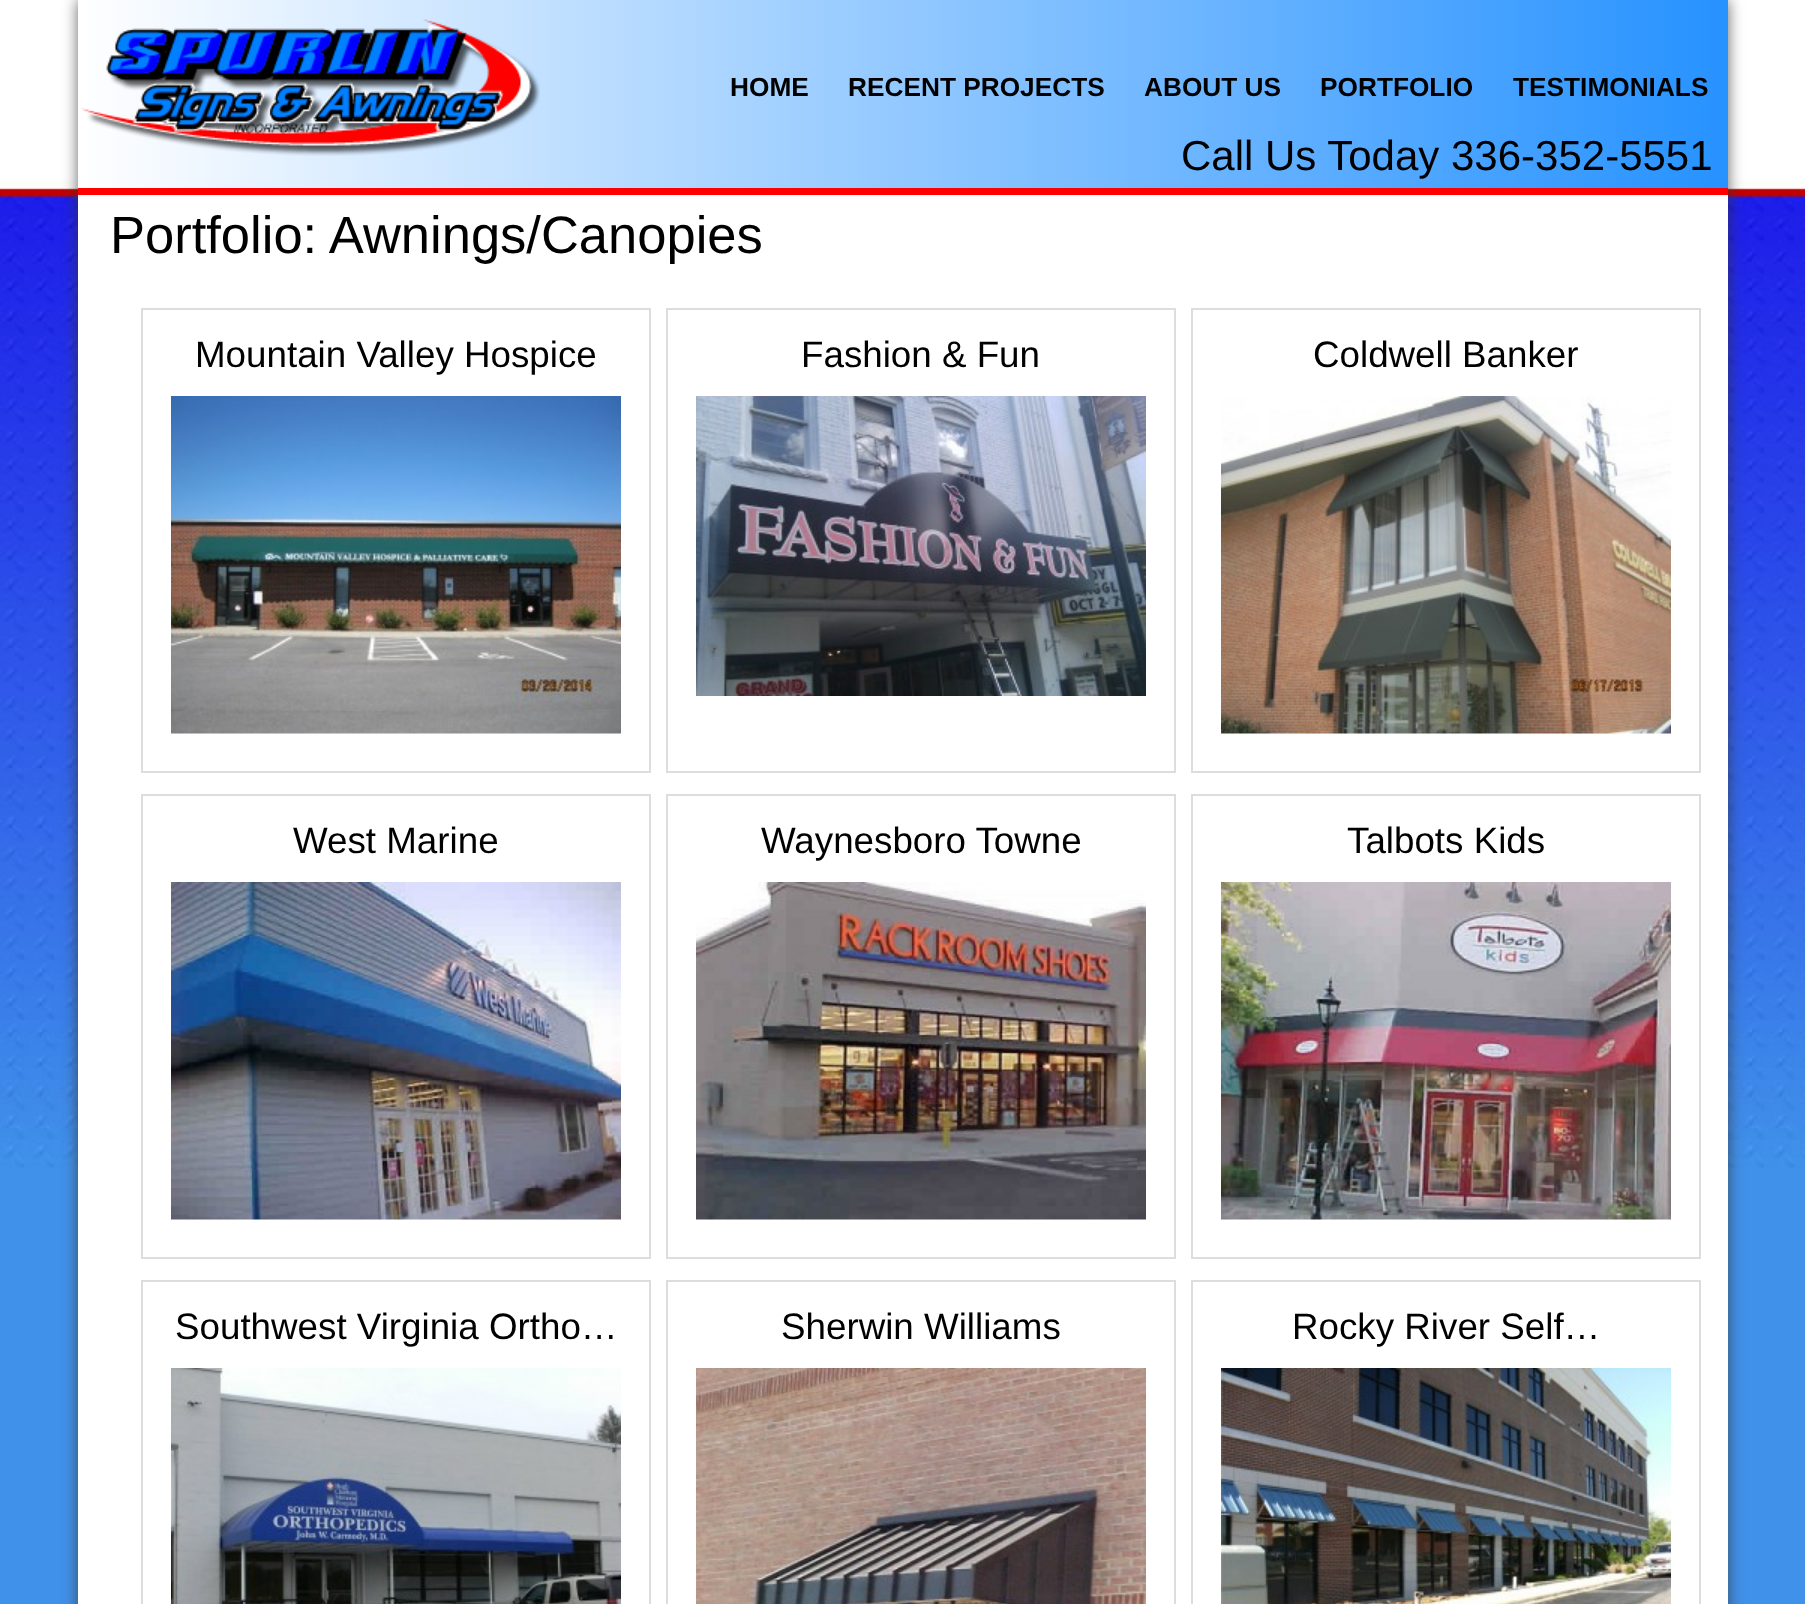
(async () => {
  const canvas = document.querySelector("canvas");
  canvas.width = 1805;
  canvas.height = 1604;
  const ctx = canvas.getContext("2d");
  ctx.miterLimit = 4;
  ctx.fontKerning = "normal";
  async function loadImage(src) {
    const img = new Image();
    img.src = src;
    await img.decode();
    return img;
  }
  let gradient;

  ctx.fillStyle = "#4091ea";
  ctx.fillRect(0, 0, 1805, 1604);
  ctx.drawImage(await loadImage("img/1.png"), 0, 0, 1805, 1168);
  ctx.fillStyle = "rgba(50, 50, 50, 0.75)";
  ctx.filter = "blur(7.5px)";
  ctx.beginPath();
  ctx.rect(78, 0, 1650, 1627);
  ctx.fill();
  ctx.filter = "none";
  gradient = ctx.createLinearGradient(1728, 94, 78, 94);
  gradient.addColorStop(0, "#2692ff");
  gradient.addColorStop(1, "#ffffff");
  ctx.fillStyle = gradient;
  ctx.fillRect(78, 0, 1650, 188);
  ctx.fillStyle = "#fe0000";
  ctx.fillRect(78, 188, 1650, 7);
  ctx.drawImage(await loadImage("img/2.png"), 81, 19, 459, 137);
  ctx.fillStyle = "#ffffff";
  ctx.fillRect(78, 195, 1650, 1409);
  ctx.strokeStyle = "#dddddd";
  ctx.lineWidth = 2;
  ctx.strokeRect(142, 309, 508, 463);
  ctx.drawImage(await loadImage("img/3.png"), 171, 396, 450, 338);
  ctx.strokeRect(667, 309, 508, 463);
  ctx.drawImage(await loadImage("img/4.png"), 696, 396, 450, 300);
  ctx.strokeRect(1192, 309, 508, 463);
  ctx.drawImage(await loadImage("img/5.png"), 1221, 396, 450, 338);
  ctx.strokeRect(142, 795, 508, 463);
  ctx.drawImage(await loadImage("img/6.png"), 171, 882, 450, 338);
  ctx.strokeRect(667, 795, 508, 463);
  ctx.drawImage(await loadImage("img/7.png"), 696, 882, 450, 338);
  ctx.strokeRect(1192, 795, 508, 463);
  ctx.drawImage(await loadImage("img/8.png"), 1221, 882, 450, 338);
  ctx.strokeRect(142, 1281, 508, 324);
  ctx.drawImage(await loadImage("img/9.png"), 171, 1368, 450, 236);
  ctx.strokeRect(667, 1281, 508, 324);
  ctx.drawImage(await loadImage("img/10.png"), 696, 1368, 450, 236);
  ctx.strokeRect(1192, 1281, 508, 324);
  ctx.drawImage(await loadImage("img/11.png"), 1221, 1368, 450, 236);
  ctx.font = "bold 26.25px Liberation Sans";
  ctx.fillStyle = "#000000";
  for (const [text, x, y] of [
    ["HOME", 730, 96],
    ["RECENT PROJECTS", 848, 96],
    ["ABOUT US", 1144, 96],
    ["PORTFOLIO", 1320, 96],
    ["TESTIMONIALS", 1513, 96],
  ]) {
    ctx.fillText(text, x, y);
  }
  ctx.font = "42px Liberation Sans";
  ctx.fillText("Call Us Today 336-352-5551", 1181, 170);
  ctx.font = "52.5px Liberation Sans";
  ctx.fillText("Portfolio: Awnings/Canopies", 110, 253);
  ctx.font = "36.75px Liberation Sans";
  for (const [text, x, y] of [
    ["Mountain Valley Hospice", 195, 367],
    ["Fashion & Fun", 801, 367],
    ["Coldwell Banker", 1313, 367],
    ["West Marine", 293, 853],
    ["Waynesboro Towne", 761, 853],
    ["Talbots Kids", 1347, 853],
    ["Southwest Virginia Ortho…", 175, 1339],
    ["Sherwin Williams", 781, 1339],
    ["Rocky River Self…", 1292, 1339],
  ]) {
    ctx.fillText(text, x, y);
  }
})();
